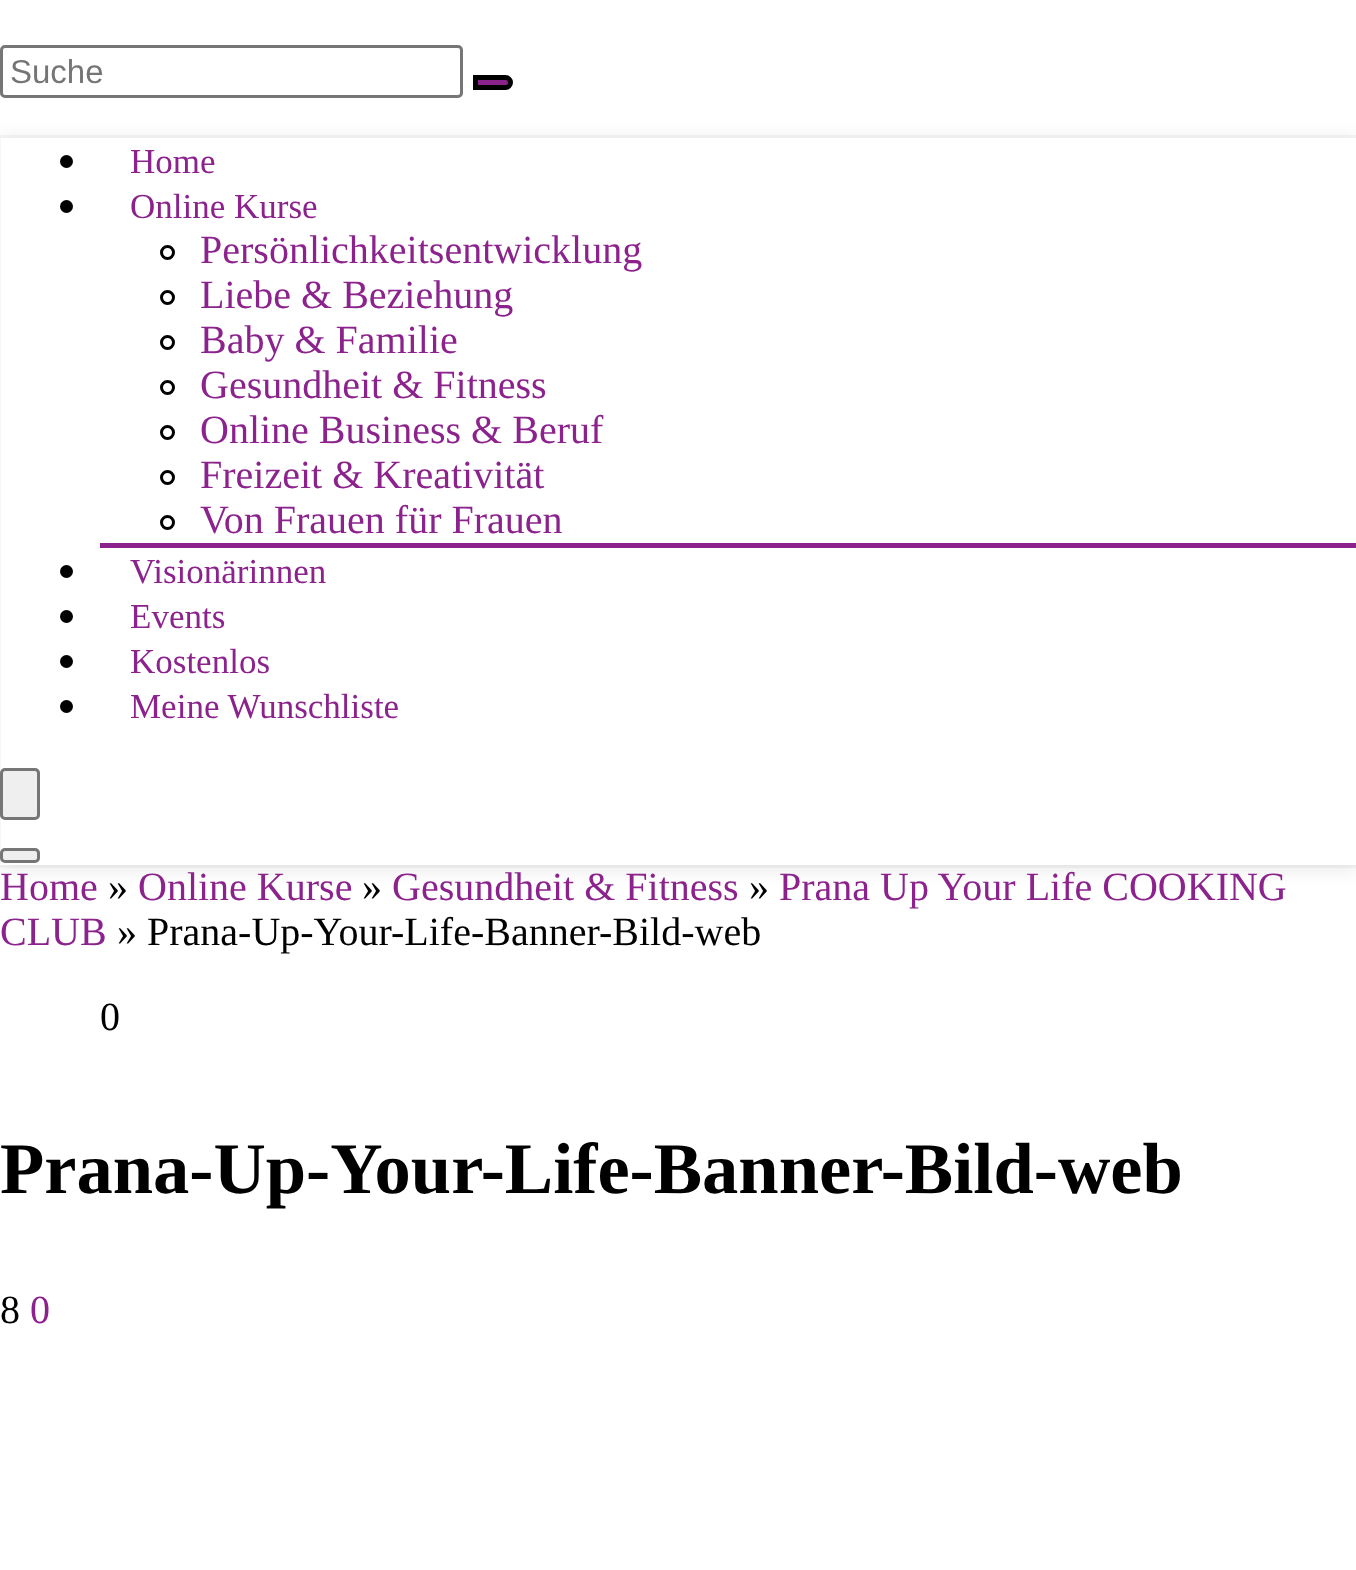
(async () => {
  const canvas = document.querySelector("canvas");
  canvas.width = 1356;
  canvas.height = 1570;
  const ctx = canvas.getContext("2d");
  ctx.miterLimit = 4;
  ctx.fontKerning = "normal";
  let path;

  ctx.fillStyle = "#ffffff";
  ctx.fillRect(0, 0, 1356, 1570);
  ctx.beginPath();
  ctx.roundRect(1.5, 46.5, 460, 50, 3.5);
  ctx.strokeStyle = "#767676";
  ctx.lineWidth = 3;
  ctx.stroke();
  ctx.fillStyle = "#8c238d";
  ctx.beginPath();
  ctx.roundRect(475.5, 77.5, 35, 10, [0, 5, 5, 0]);
  ctx.fill();
  ctx.strokeStyle = "#000000";
  ctx.lineWidth = 5;
  ctx.stroke();
  ctx.strokeStyle = "#f7f7f7";
  ctx.lineWidth = 3;
  ctx.strokeRect(-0.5, 136.5, 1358, 730);
  ctx.save();
  path = new Path2D("M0 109H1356V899H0ZM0 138H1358V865H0Z");
  ctx.clip(path, "evenodd");
  ctx.fillStyle = "rgba(0, 0, 0, 0.1)";
  ctx.filter = "blur(10px)";
  ctx.beginPath();
  ctx.rect(0, 140, 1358, 728);
  ctx.fill();
  ctx.filter = "none";
  ctx.restore();
  ctx.fillStyle = "#000000";
  ctx.beginPath();
  ctx.arc(66.5, 161.5, 6.5, 0, Math.PI * 2);
  ctx.fill();
  ctx.beginPath();
  ctx.arc(66.5, 206.5, 6.5, 0, Math.PI * 2);
  ctx.fill();
  ctx.fillStyle = "#8c238d";
  ctx.fillRect(100, 543, 1256, 5);
  ctx.beginPath();
  ctx.arc(167.5, 252.5, 6, 0, Math.PI * 2);
  ctx.strokeStyle = "#000000";
  ctx.stroke();
  ctx.beginPath();
  ctx.arc(167.5, 297.5, 6, 0, Math.PI * 2);
  ctx.stroke();
  ctx.beginPath();
  ctx.arc(167.5, 342.5, 6, 0, Math.PI * 2);
  ctx.stroke();
  ctx.beginPath();
  ctx.arc(167.5, 387.5, 6, 0, Math.PI * 2);
  ctx.stroke();
  ctx.beginPath();
  ctx.arc(167.5, 432.5, 6, 0, Math.PI * 2);
  ctx.stroke();
  ctx.beginPath();
  ctx.arc(167.5, 477.5, 6, 0, Math.PI * 2);
  ctx.stroke();
  ctx.beginPath();
  ctx.arc(167.5, 522.5, 6, 0, Math.PI * 2);
  ctx.stroke();
  ctx.fillStyle = "#000000";
  ctx.beginPath();
  ctx.arc(66.5, 571.5, 6.5, 0, Math.PI * 2);
  ctx.fill();
  ctx.beginPath();
  ctx.arc(66.5, 616.5, 6.5, 0, Math.PI * 2);
  ctx.fill();
  ctx.beginPath();
  ctx.arc(66.5, 661.5, 6.5, 0, Math.PI * 2);
  ctx.fill();
  ctx.beginPath();
  ctx.arc(66.5, 706.5, 6.5, 0, Math.PI * 2);
  ctx.fill();
  ctx.fillStyle = "#efefef";
  ctx.beginPath();
  ctx.roundRect(1.5, 769.5, 37, 49, 3.5);
  ctx.fill();
  ctx.strokeStyle = "#767676";
  ctx.stroke();
  ctx.beginPath();
  ctx.roundRect(1.5, 849.5, 37, 12, 3.5);
  ctx.fill();
  ctx.stroke();
  ctx.font = "33px Liberation Sans";
  ctx.fillStyle = "#757575";
  ctx.fillText("Suche", 10, 83);
  ctx.font = "35px Liberation Serif";
  ctx.fillStyle = "#8c238d";
  ctx.fillText("Home", 130, 173);
  ctx.fillText("Online Kurse", 130, 218);
  ctx.font = "40px Liberation Serif";
  for (const [text, x, y] of [
    ["Persönlichkeitsentwicklung", 200, 263],
    ["Liebe & Beziehung", 200, 308],
    ["Baby & Familie", 200, 353],
    ["Gesundheit & Fitness", 200, 398],
    ["Online Business & Beruf", 200, 443],
    ["Freizeit & Kreativität", 200, 488],
    ["Von Frauen für Frauen", 200, 533],
  ]) {
    ctx.fillText(text, x, y);
  }
  ctx.font = "35px Liberation Serif";
  for (const [text, x, y] of [
    ["Visionärinnen", 130, 583],
    ["Events", 130, 628],
    ["Kostenlos", 130, 673],
    ["Meine Wunschliste", 130, 718],
  ]) {
    ctx.fillText(text, x, y);
  }
  ctx.font = "40px Liberation Serif";
  ctx.fillText("Home", 0, 900);
  ctx.fillStyle = "#000000";
  ctx.fillText("»", 108, 900);
  ctx.fillStyle = "#8c238d";
  ctx.fillText("Online Kurse", 138, 900);
  ctx.fillStyle = "#000000";
  ctx.fillText("»", 362, 900);
  ctx.fillStyle = "#8c238d";
  ctx.fillText("Gesundheit & Fitness", 392, 900);
  ctx.fillStyle = "#000000";
  ctx.fillText("»", 749, 900);
  ctx.fillStyle = "#8c238d";
  ctx.fillText("Prana Up Your Life COOKING", 779, 900);
  ctx.fillText("CLUB", 0, 945);
  ctx.fillStyle = "#000000";
  ctx.fillText("» Prana-Up-Your-Life-Banner-Bild-web", 117, 945);
  ctx.fillText("0", 100, 1030);
  ctx.font = "bold 72.5px Liberation Serif";
  ctx.fillText("Prana-Up-Your-Life-Banner-Bild-web", 0, 1193);
  ctx.font = "40px Liberation Serif";
  ctx.fillText("8", 0, 1323);
  ctx.fillStyle = "#8c238d";
  ctx.fillText("0", 30, 1323);
})();
